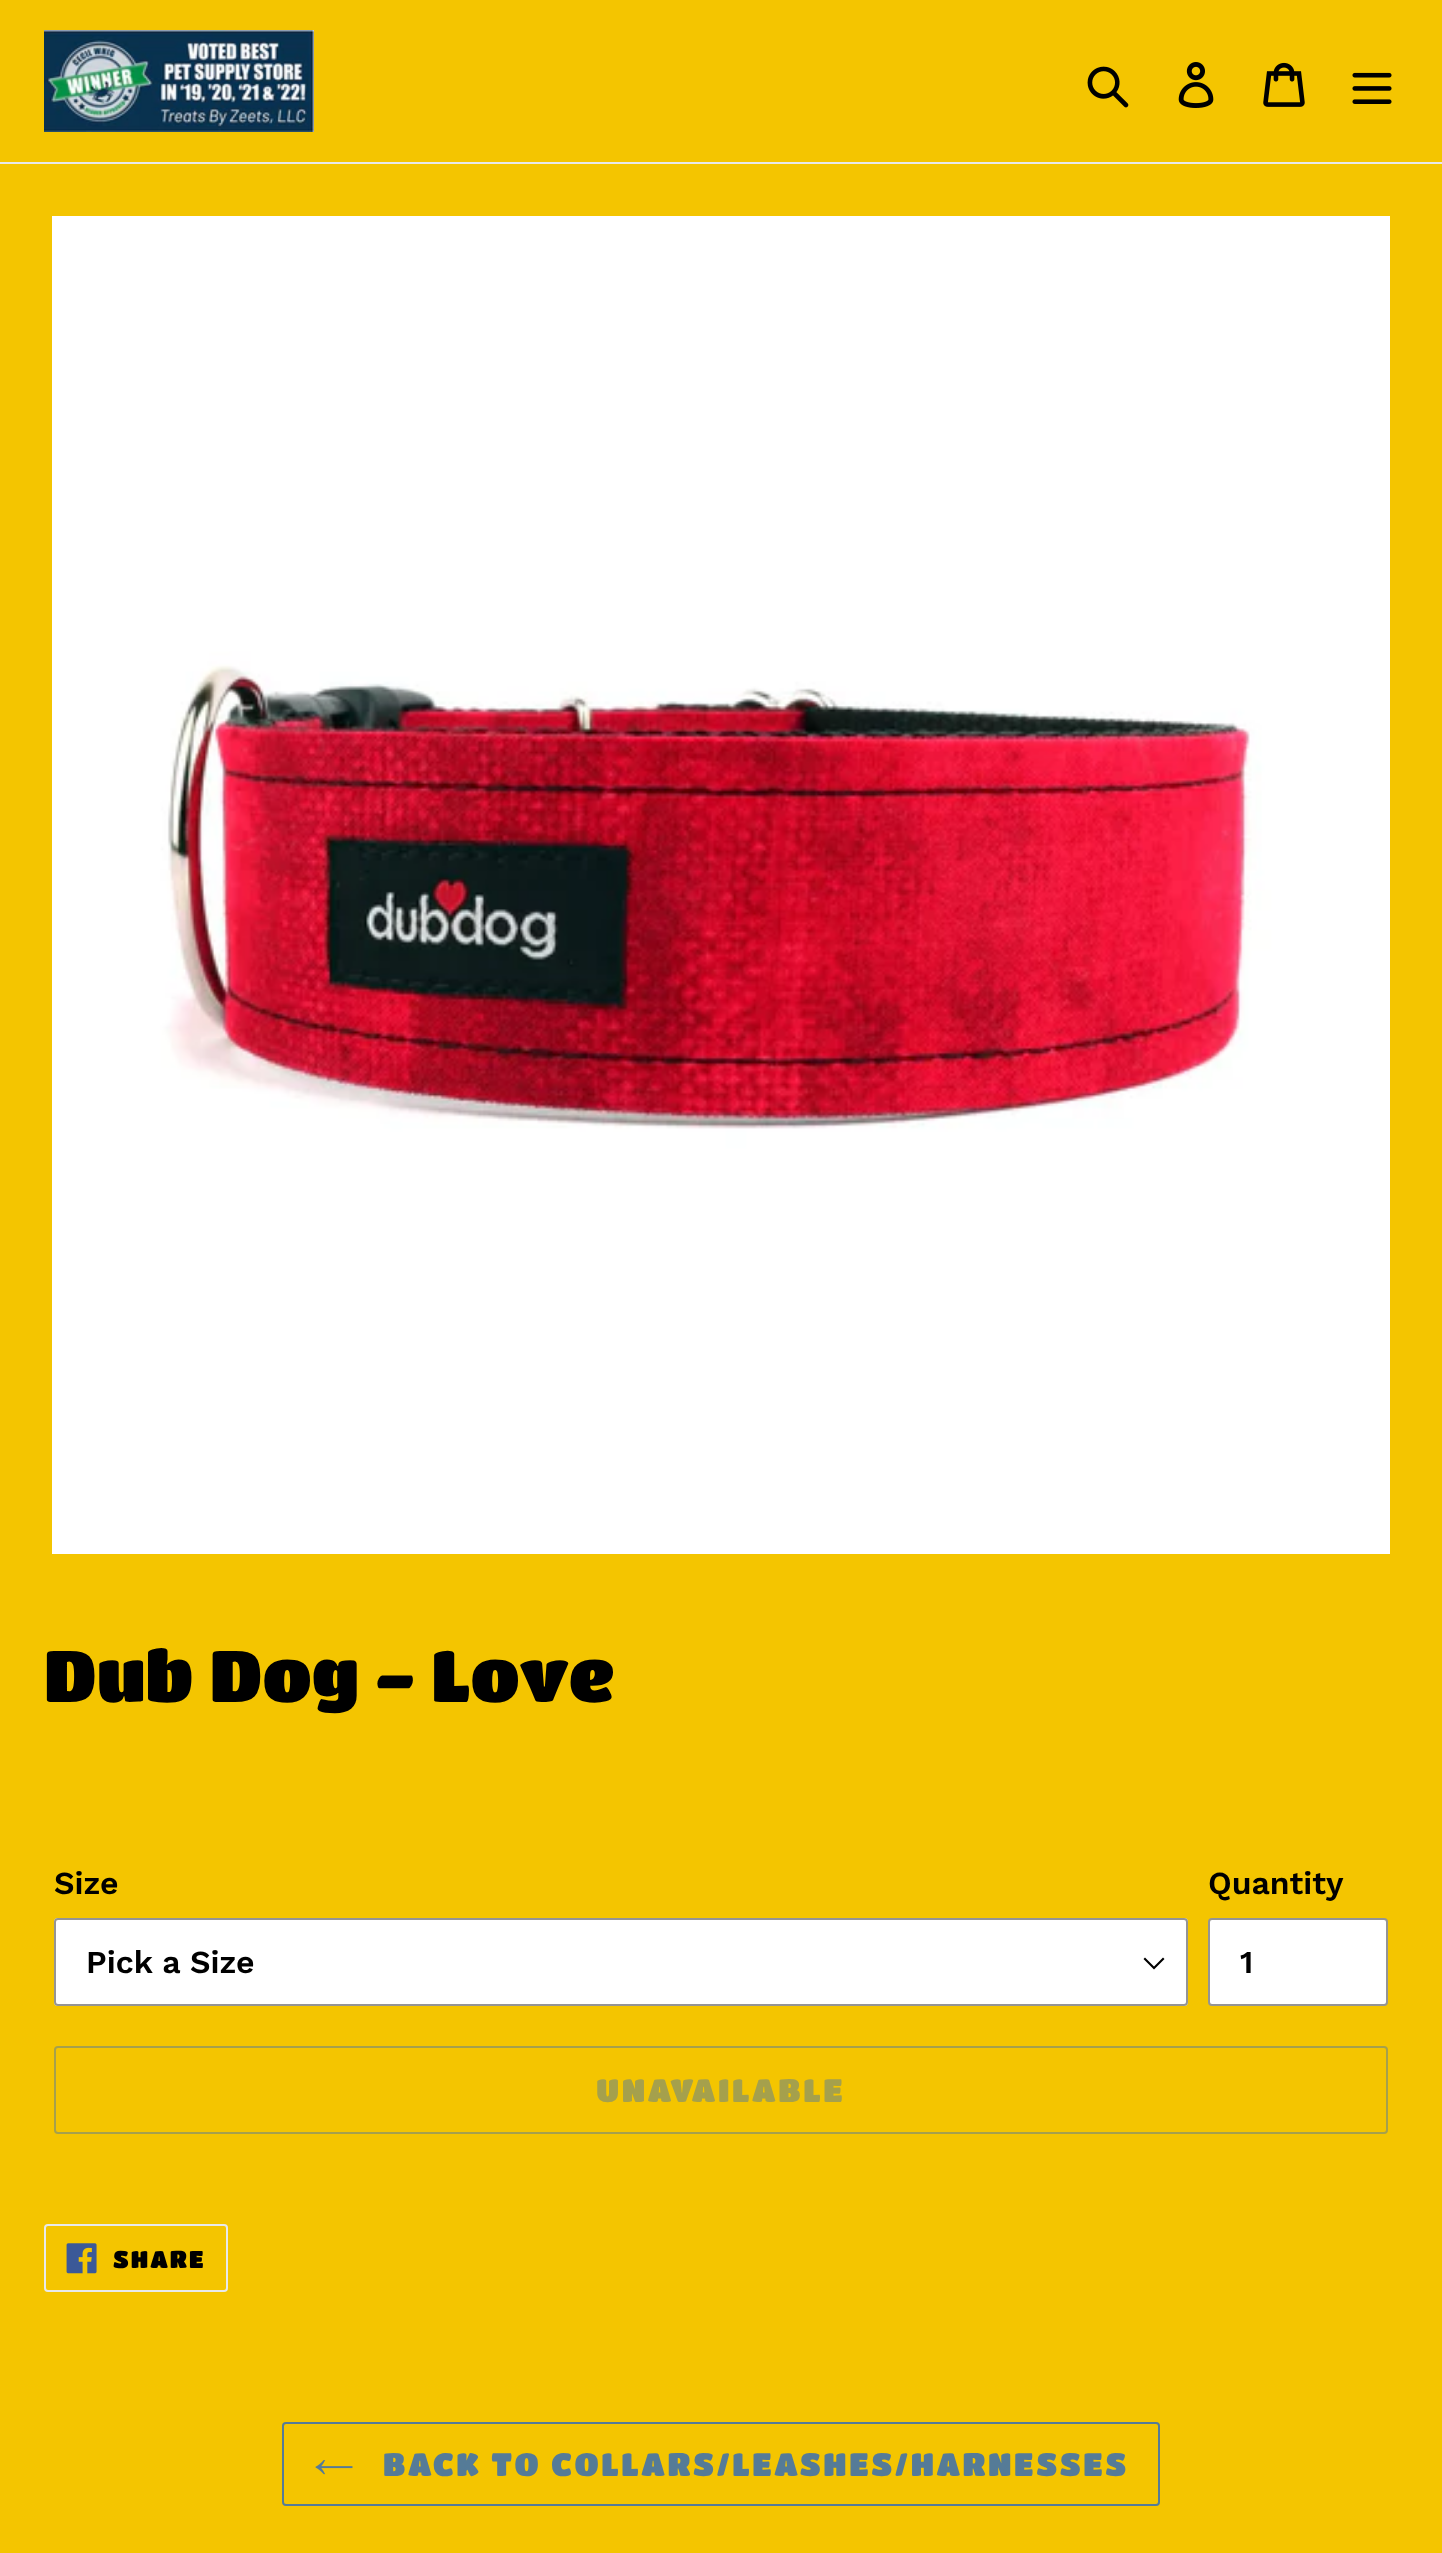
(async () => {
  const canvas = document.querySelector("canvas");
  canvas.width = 1442;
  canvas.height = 2553;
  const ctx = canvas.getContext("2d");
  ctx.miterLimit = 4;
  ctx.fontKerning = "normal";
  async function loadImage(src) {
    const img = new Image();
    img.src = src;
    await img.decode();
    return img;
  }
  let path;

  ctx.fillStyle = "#f4c500";
  ctx.fillRect(0, 0, 1442, 2553);
  ctx.fillStyle = "#e8e9eb";
  ctx.fillRect(0, 162, 1442, 2);
  ctx.drawImage(await loadImage("img/1.png"), 44, 30, 270, 102);
  ctx.drawImage(await loadImage("img/2.png"), 1087, 66, 42, 42);
  ctx.drawImage(await loadImage("img/3.png"), 1178, 62, 36, 46);
  ctx.drawImage(await loadImage("img/4.png"), 1263, 62, 42, 45);
  ctx.drawImage(await loadImage("img/5.png"), 1352, 72, 40, 32);
  ctx.drawImage(await loadImage("img/6.png"), 52, 216, 1338, 1338);
  ctx.fillStyle = "#ffffff";
  ctx.beginPath();
  ctx.roundRect(54, 1918, 1134, 88, 4);
  ctx.fill();
  ctx.fillStyle = "#000000";
  path = new Path2D("M1154 1969.5L1143.5 1959L1145 1957.5L1154 1966.5L1163 1957.5L1164.5 1959Z");
  ctx.fill(path);
  ctx.beginPath();
  ctx.roundRect(55, 1919, 1132, 86, 3);
  ctx.strokeStyle = "#949494";
  ctx.lineWidth = 2;
  ctx.stroke();
  ctx.fillStyle = "#ffffff";
  ctx.beginPath();
  ctx.roundRect(1209, 1919, 178, 86, 3);
  ctx.fill();
  ctx.stroke();
  ctx.beginPath();
  ctx.roundRect(55, 2047, 1332, 86, 3);
  ctx.strokeStyle = "#a5a04c";
  ctx.stroke();
  ctx.beginPath();
  ctx.roundRect(45, 2225, 182, 66, 3);
  ctx.strokeStyle = "#e8e9eb";
  ctx.stroke();
  ctx.drawImage(await loadImage("img/7.png"), 66, 2243, 31, 31);
  ctx.beginPath();
  ctx.roundRect(283, 2423, 876, 82, 3);
  ctx.strokeStyle = "#557b97";
  ctx.stroke();
  ctx.drawImage(await loadImage("img/8.png"), 315, 2460, 38, 15);
  ctx.font = "72px Titan One";
  ctx.fillStyle = "#000000";
  ctx.fillText("Dub Dog - Love", 44, 1702);
  ctx.font = "600 32px Work Sans";
  for (const [text, x, y] of [
    ["Size", 54, 1894],
    ["Pick a Size", 86, 1973],
    ["Quantity", 1208, 1894],
    ["1", 1240, 1973],
  ]) {
    ctx.fillText(text, x, y);
  }
  ctx.letterSpacing = "2.55px";
  ctx.font = "32px Titan One";
  ctx.fillStyle = "#a5a04c";
  ctx.fillText("UNAVAILABLE", 596, 2102);
  ctx.letterSpacing = "2px";
  ctx.font = "24px Titan One";
  ctx.fillStyle = "#000000";
  ctx.fillText("SHARE", 113, 2268);
  ctx.letterSpacing = "2.55px";
  ctx.font = "32px Titan One";
  ctx.fillStyle = "#557b97";
  ctx.fillText("BACK TO COLLARS/LEASHES/HARNESSES", 383, 2476);
})();
